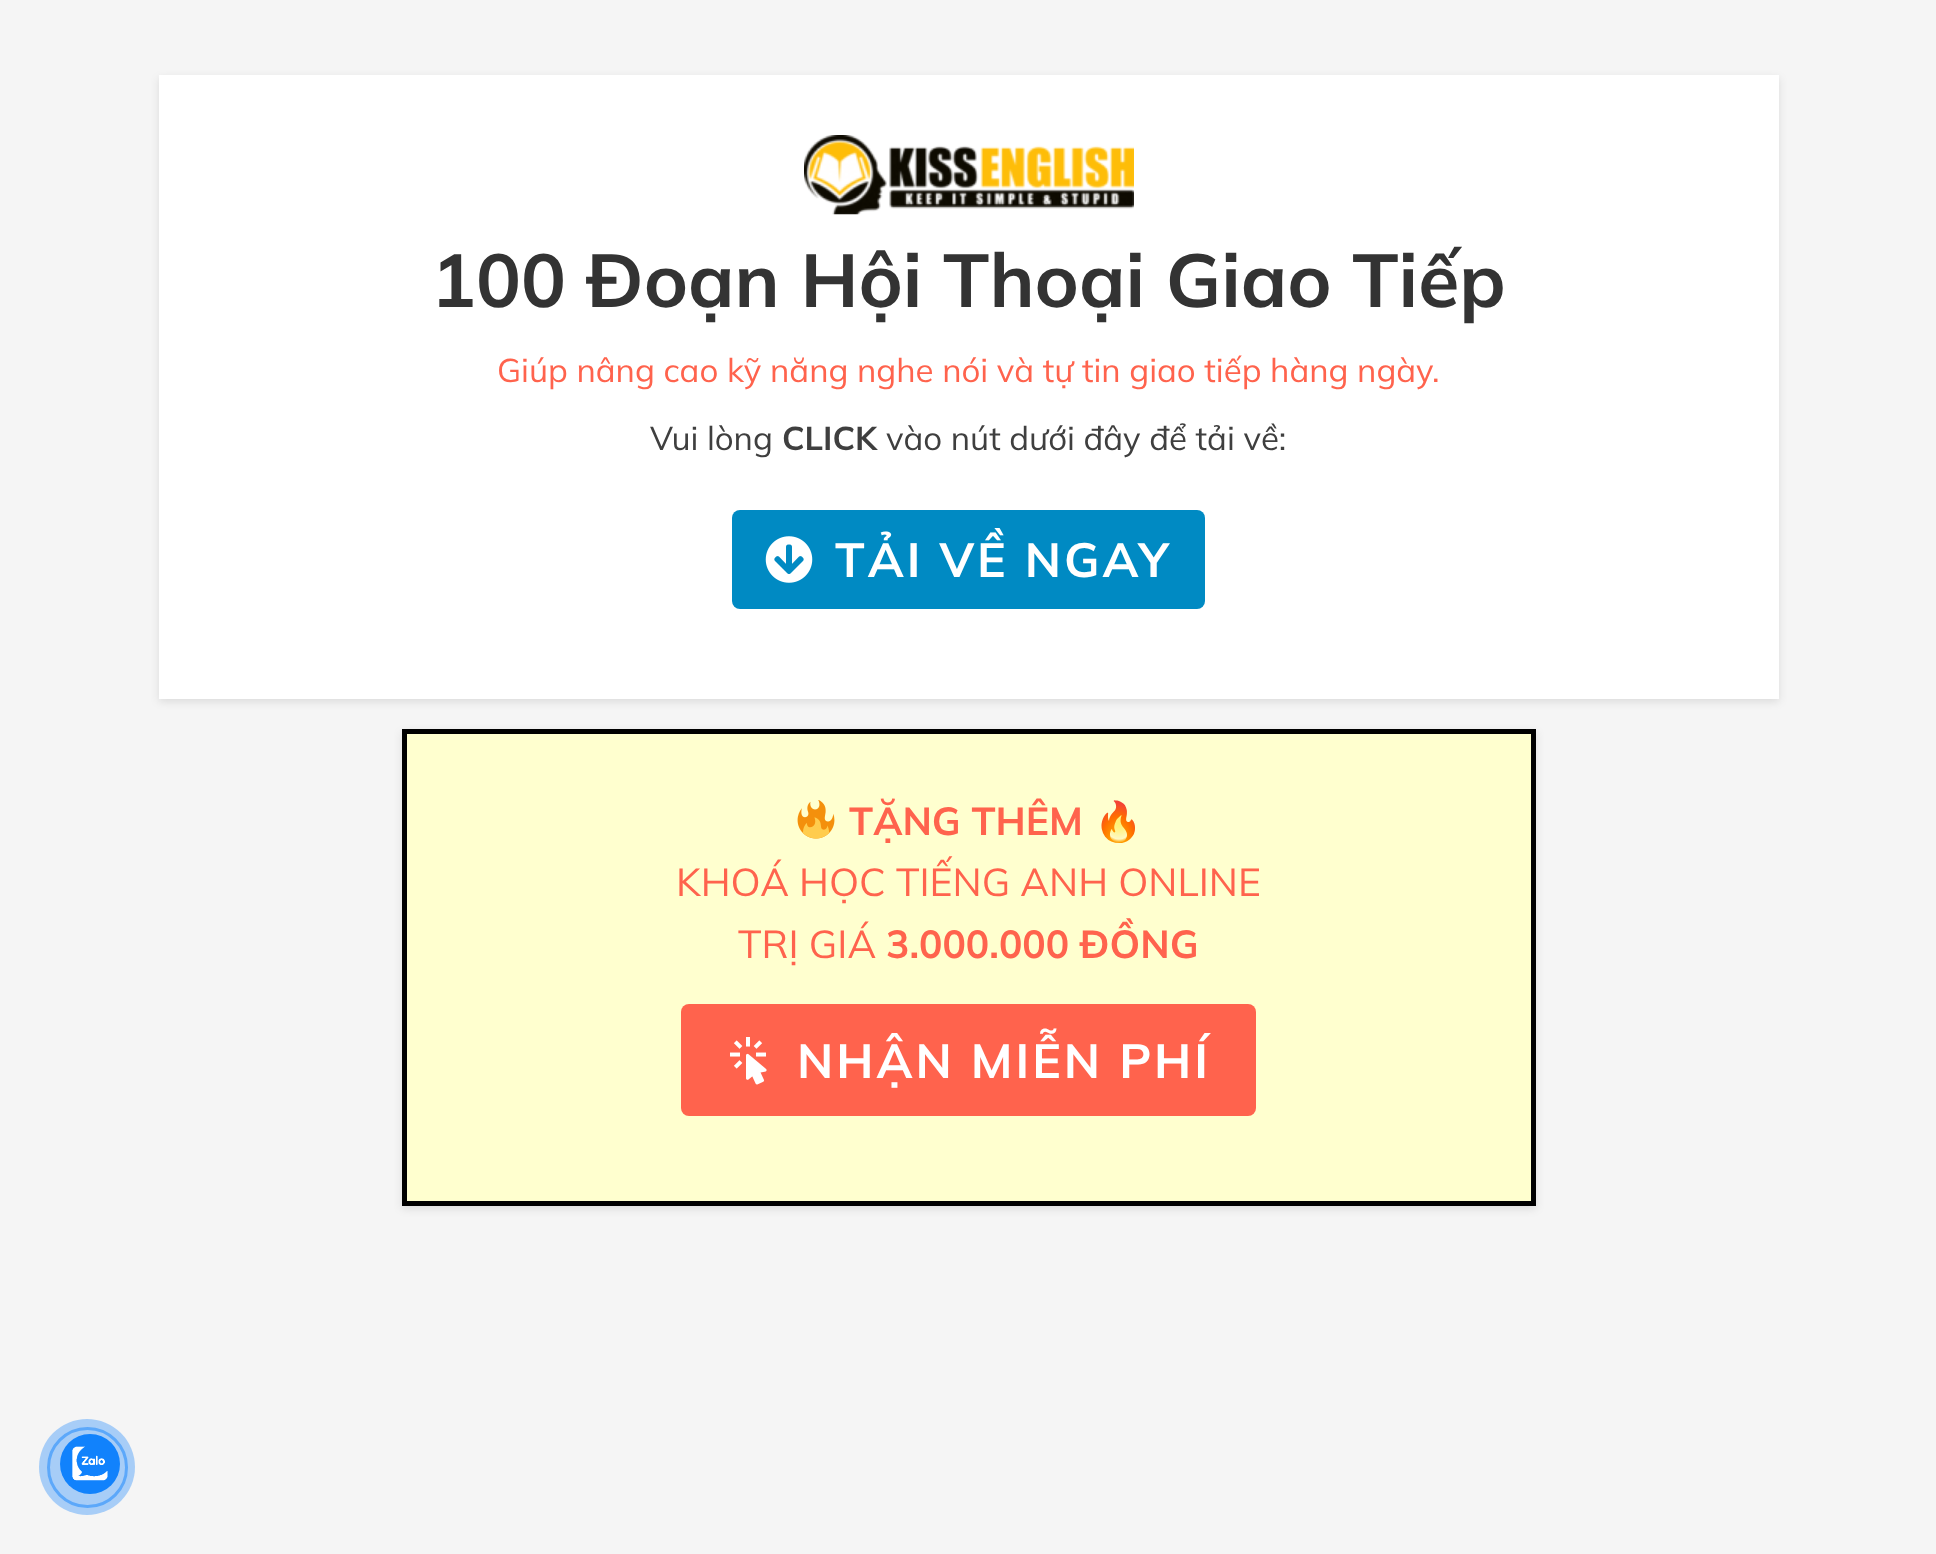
(async () => {
  const canvas = document.querySelector("canvas");
  canvas.width = 1936;
  canvas.height = 1554;
  const ctx = canvas.getContext("2d");
  ctx.miterLimit = 4;
  ctx.fontKerning = "normal";
  async function loadImage(src) {
    const img = new Image();
    img.src = src;
    await img.decode();
    return img;
  }

  ctx.fillStyle = "#f5f5f5";
  ctx.fillRect(0, 0, 1936, 1554);
  ctx.fillStyle = "rgba(0, 0, 0, 0.1)";
  ctx.filter = "blur(4.5px)";
  ctx.beginPath();
  ctx.rect(159, 78, 1620, 624);
  ctx.fill();
  ctx.filter = "none";
  ctx.fillStyle = "#ffffff";
  ctx.fillRect(159, 75, 1620, 624);
  ctx.drawImage(await loadImage("img/1.png"), 804, 135, 330, 80);
  ctx.fillStyle = "#008ac3";
  ctx.beginPath();
  ctx.roundRect(732, 510, 473, 99, 8);
  ctx.fill();
  ctx.drawImage(await loadImage("img/2.png"), 765, 536, 48, 47);
  ctx.fillStyle = "rgba(0, 0, 0, 0.1)";
  ctx.filter = "blur(4.5px)";
  ctx.beginPath();
  ctx.rect(402, 732, 1134, 477);
  ctx.fill();
  ctx.filter = "none";
  ctx.fillStyle = "#ffffcf";
  ctx.beginPath();
  ctx.rect(404.5, 731.5, 1129, 472);
  ctx.fill();
  ctx.strokeStyle = "#000000";
  ctx.lineWidth = 5;
  ctx.stroke();
  ctx.drawImage(await loadImage("img/3.png"), 797, 800, 38, 39);
  ctx.fillStyle = "#ff634d";
  ctx.beginPath();
  ctx.roundRect(681, 1004, 575, 112, 8);
  ctx.fill();
  ctx.drawImage(await loadImage("img/4.png"), 730, 1037, 37, 48);
  ctx.beginPath();
  ctx.arc(87.5, 1467.5, 39, 0, Math.PI * 2);
  ctx.strokeStyle = "#83bcf9";
  ctx.lineWidth = 3;
  ctx.stroke();
  ctx.fillStyle = "rgba(17, 130, 252, 0.34)";
  ctx.beginPath();
  ctx.arc(87, 1467, 48, 0, Math.PI * 2);
  ctx.fill();
  ctx.fillStyle = "#1182fc";
  ctx.beginPath();
  ctx.arc(90, 1464, 30, 0, Math.PI * 2);
  ctx.fill();
  ctx.drawImage(await loadImage("img/5.png"), 72, 1446, 36, 35);
  ctx.font = "bold 75px Mulish";
  ctx.fillStyle = "#333333";
  ctx.fillText("100 Đoạn Hội Thoại Giao Tiếp", 431, 307);
  ctx.font = "33px Mulish";
  ctx.fillStyle = "#ff634d";
  ctx.fillText("Giúp nâng cao kỹ năng nghe nói và tự tin giao tiếp hàng ngày.", 497, 382);
  ctx.fillStyle = "#3f3f3f";
  ctx.fillText("Vui lòng", 650, 450);
  ctx.font = "bold 33px Mulish";
  ctx.fillText("CLICK", 782, 450);
  ctx.font = "33px Mulish";
  ctx.fillText("vào nút dưới đây để tải về:", 886, 450);
  ctx.letterSpacing = "3px";
  ctx.font = "bold 48px Mulish";
  ctx.fillStyle = "#ffffff";
  ctx.fillText("TẢI VỀ NGAY", 835, 577);
  ctx.letterSpacing = "0px";
  ctx.font = "bold 39px Mulish";
  ctx.fillStyle = "#ff634d";
  ctx.fillText("TẶNG THÊM", 849, 835);
  ctx.font = "39px Noto Color Emoji";
  ctx.fillText("🔥", 1094, 835);
  ctx.font = "39px Mulish";
  ctx.fillText("KHOÁ HỌC TIẾNG ANH ONLINE", 676, 896);
  ctx.fillText("TRỊ GIÁ", 738, 958);
  ctx.font = "bold 39px Mulish";
  ctx.fillText("3.000.000 ĐỒNG", 886, 958);
  ctx.letterSpacing = "3px";
  ctx.font = "bold 48px Mulish";
  ctx.fillStyle = "#ffffff";
  ctx.fillText("NHẬN MIỄN PHÍ", 797, 1078);
})();
